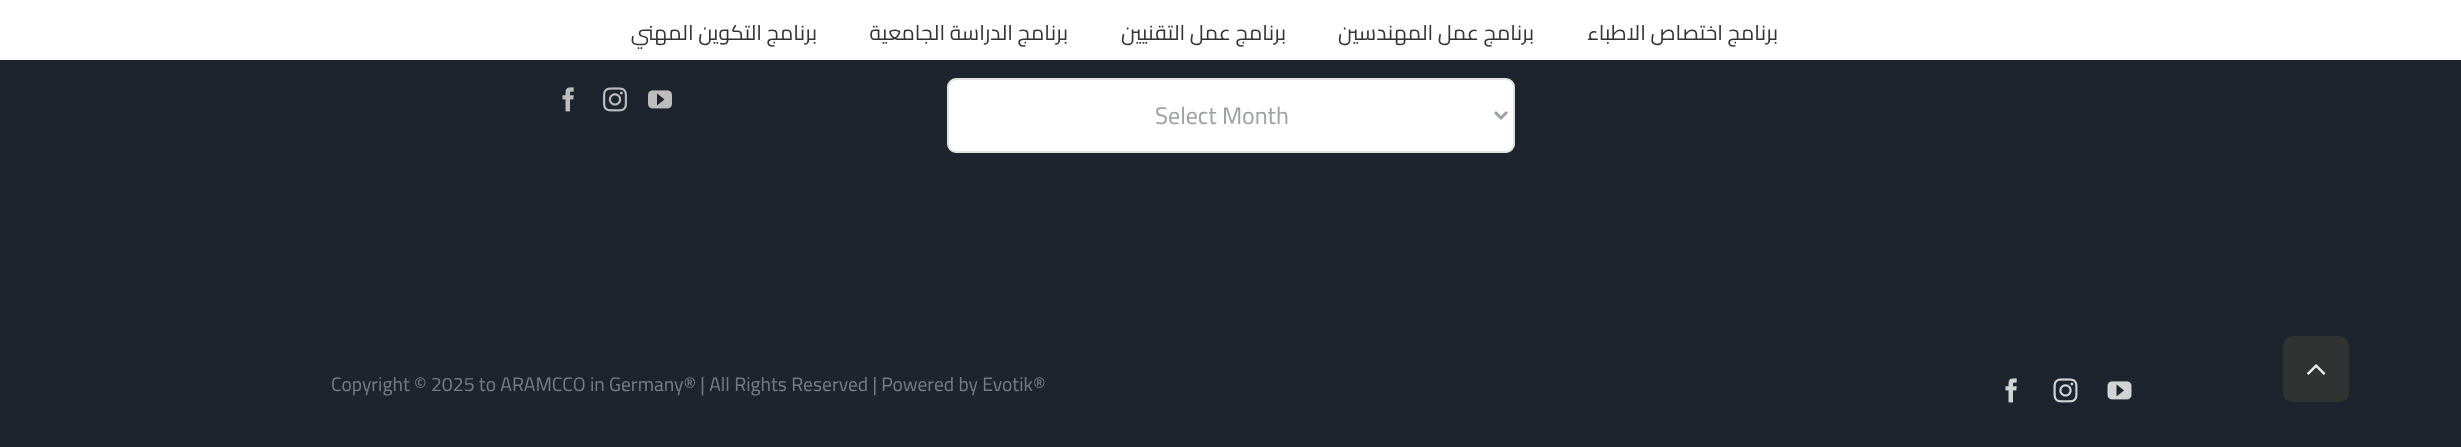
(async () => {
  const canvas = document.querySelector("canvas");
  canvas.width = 2461;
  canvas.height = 447;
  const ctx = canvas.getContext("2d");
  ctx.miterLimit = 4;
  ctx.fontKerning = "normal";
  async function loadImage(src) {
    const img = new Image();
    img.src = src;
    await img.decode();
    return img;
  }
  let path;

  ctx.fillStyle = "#1d242d";
  ctx.fillRect(0, 0, 2461, 447);
  ctx.fillStyle = "#313232";
  ctx.beginPath();
  ctx.roundRect(2283, 336, 66, 66, 9);
  ctx.fill();
  ctx.drawImage(await loadImage("img/1.png"), 2307, 364, 19, 11);
  ctx.fillStyle = "#ffffff";
  ctx.fillRect(0, 0, 2461, 60);
  ctx.drawImage(await loadImage("img/2.png"), 648, 90, 24, 19);
  ctx.drawImage(await loadImage("img/3.png"), 603, 87, 24, 25);
  ctx.drawImage(await loadImage("img/4.png"), 562, 87, 12, 25);
  ctx.beginPath();
  ctx.roundRect(948, 79, 566, 73, 8);
  ctx.fill();
  ctx.strokeStyle = "#e2e2e2";
  ctx.lineWidth = 2;
  ctx.stroke();
  path = new Path2D("M1495 112L1501 118L1507 112");
  ctx.strokeStyle = "#9ea0a4";
  ctx.lineWidth = 3;
  ctx.stroke(path);
  ctx.drawImage(await loadImage("img/5.png"), 2107, 381, 25, 19);
  ctx.drawImage(await loadImage("img/6.png"), 2053, 378, 25, 25);
  ctx.drawImage(await loadImage("img/7.png"), 2005, 378, 12, 25);
  ctx.direction = "rtl";
  ctx.font = "21px Cairo";
  ctx.fillStyle = "#333333";
  for (const [text, x, y] of [
    ["برنامج اختصاص الاطباء", 1778, 40],
    ["برنامج عمل المهندسين", 1534, 40],
    ["برنامج عمل التقنيين", 1286, 40],
    ["برنامج الدراسة الجامعية", 1068, 40],
    ["برنامج التكوين المهني", 817, 40],
  ]) {
    ctx.fillText(text, x, y);
  }
  ctx.direction = "ltr";
  ctx.font = "24px Cairo";
  ctx.fillStyle = "#9ea0a4";
  ctx.fillText("Select Month", 1155, 124);
  ctx.font = "19.5px Cairo";
  ctx.fillStyle = "#777c81";
  ctx.fillText("Copyright © 2025 to ARAMCCO in Germany® | All Rights Reserved | Powered by Evotik®", 331, 391);
})();
